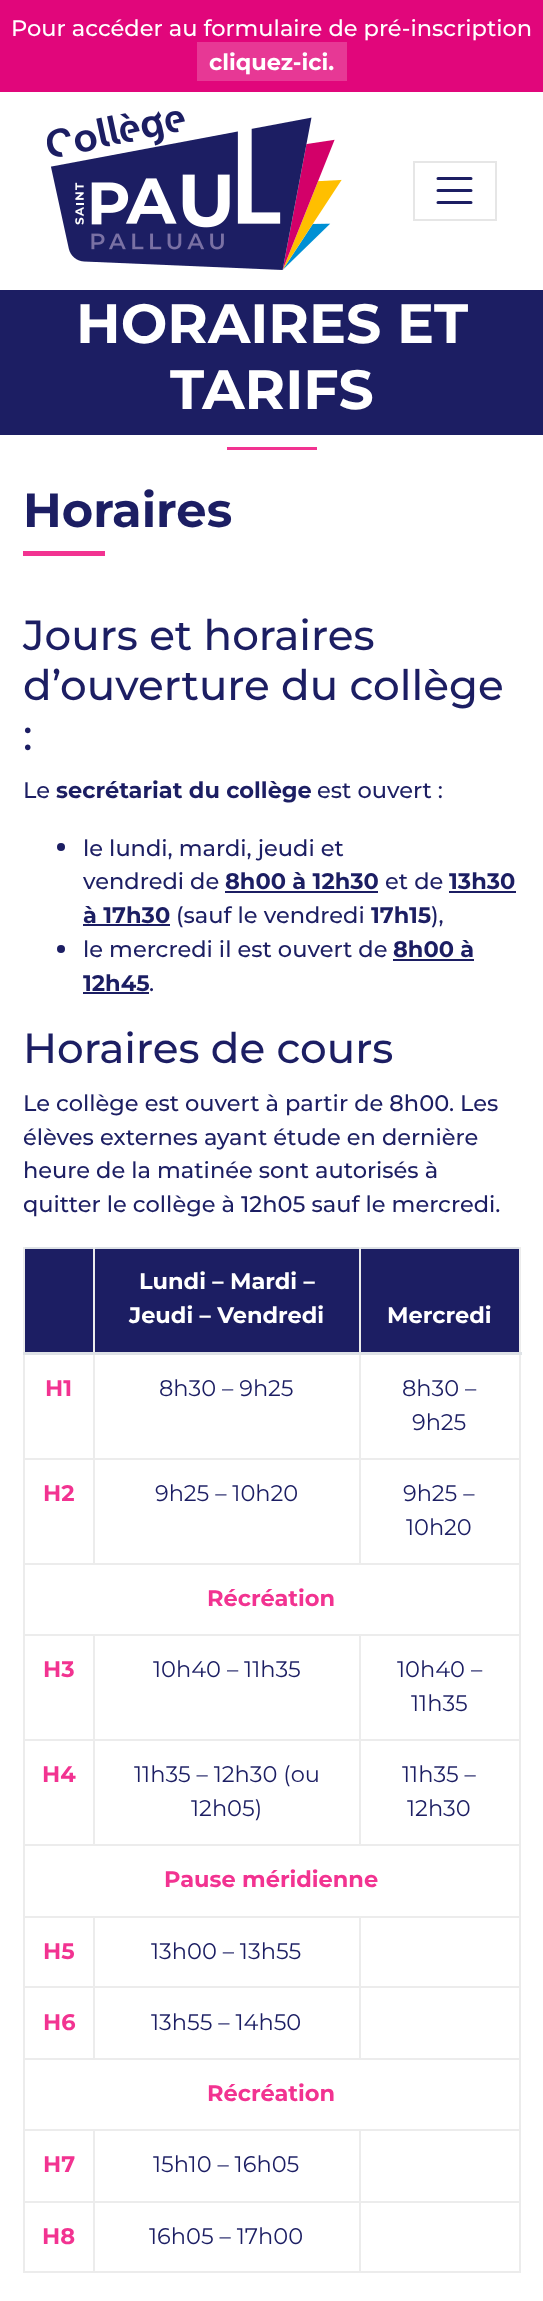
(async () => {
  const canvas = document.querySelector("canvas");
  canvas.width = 543;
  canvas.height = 2301;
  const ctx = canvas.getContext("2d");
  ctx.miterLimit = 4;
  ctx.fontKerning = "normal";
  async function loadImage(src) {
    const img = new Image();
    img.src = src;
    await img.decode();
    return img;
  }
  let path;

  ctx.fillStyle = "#ffffff";
  ctx.fillRect(0, 0, 543, 2301);
  ctx.fillStyle = "#e1067b";
  ctx.fillRect(0, 0, 543, 92);
  ctx.fillStyle = "#e73895";
  ctx.fillRect(197, 42, 150, 39);
  ctx.drawImage(await loadImage("img/1.png"), 47, 111, 295, 159);
  ctx.strokeStyle = "#e6e6e6";
  ctx.lineWidth = 2;
  ctx.strokeRect(414, 162, 82, 58);
  path = new Path2D("M438 178.5H471M438 190.5H471M438 202.5H471");
  ctx.strokeStyle = "#1c1e63";
  ctx.lineWidth = 3;
  ctx.lineCap = "round";
  ctx.stroke(path);
  for (const [x, y, w, h, color] of [
    [0, 290, 543, 145, "#1c1e63"],
    [227, 447, 90, 3, "#f23391"],
    [23, 551, 82, 5, "#f23391"],
  ]) {
    ctx.fillStyle = color;
    ctx.fillRect(x, y, w, h);
  }
  ctx.fillStyle = "#1c1e63";
  ctx.beginPath();
  ctx.arc(61, 847, 4, 0, Math.PI * 2);
  ctx.fill();
  for (const [x, y, w, h, color] of [
    [225, 891, 153, 2, "#1c1e63"],
    [449, 891, 67, 2, "#1c1e63"],
    [83, 924, 87, 2, "#1c1e63"],
  ]) {
    ctx.fillStyle = color;
    ctx.fillRect(x, y, w, h);
  }
  ctx.beginPath();
  ctx.arc(61, 949, 4, 0, Math.PI * 2);
  ctx.fill();
  for (const [x, y, w, h, color] of [
    [393, 959, 81, 2, "#1c1e63"],
    [83, 992, 66, 2, "#1c1e63"],
    [23, 2271, 498, 2, "#ececec"],
    [25, 1249, 494, 103, "#1c1e63"],
    [23, 1247, 498, 2, "#dee2e6"],
    [519, 1352, 2, 921, "#ececec"],
    [359, 1563, 162, 2, "#ececec"],
    [359, 1458, 2, 107, "#ececec"],
    [359, 1458, 162, 2, "#ececec"],
    [359, 1352, 2, 108, "#ececec"],
    [93, 1563, 267, 2, "#ececec"],
    [93, 1458, 2, 107, "#ececec"],
    [93, 1458, 267, 2, "#ececec"],
    [93, 1352, 2, 108, "#ececec"],
    [93, 1247, 2, 106, "#ececec"],
    [359, 1844, 162, 2, "#ececec"],
    [359, 1739, 2, 106, "#ececec"],
    [359, 1739, 162, 2, "#ececec"],
    [359, 1634, 2, 106, "#ececec"],
    [93, 1844, 267, 2, "#ececec"],
    [93, 1739, 2, 106, "#ececec"],
    [93, 1739, 267, 2, "#ececec"],
    [93, 1634, 2, 106, "#ececec"],
    [359, 2058, 162, 2, "#ececec"],
    [359, 1986, 2, 74, "#ececec"],
    [359, 1986, 162, 2, "#ececec"],
    [359, 1916, 2, 72, "#ececec"],
    [93, 2058, 267, 2, "#ececec"],
    [93, 1986, 2, 74, "#ececec"],
    [93, 1986, 267, 2, "#ececec"],
    [93, 1916, 2, 72, "#ececec"],
    [359, 2201, 2, 72, "#ececec"],
    [359, 2201, 162, 2, "#ececec"],
    [359, 2129, 2, 73, "#ececec"],
    [93, 2201, 2, 72, "#ececec"],
    [93, 2201, 267, 2, "#ececec"],
    [93, 2129, 2, 73, "#ececec"],
    [23, 2201, 2, 72, "#ececec"],
    [23, 2201, 72, 2, "#ececec"],
    [23, 2129, 2, 73, "#ececec"],
    [23, 2129, 498, 2, "#ececec"],
    [23, 2058, 2, 72, "#ececec"],
    [23, 2058, 72, 2, "#ececec"],
    [23, 1986, 2, 74, "#ececec"],
    [23, 1986, 72, 2, "#ececec"],
    [23, 1916, 2, 72, "#ececec"],
    [23, 1916, 498, 2, "#ececec"],
    [23, 1844, 2, 73, "#ececec"],
    [23, 1844, 72, 2, "#ececec"],
    [23, 1739, 2, 106, "#ececec"],
    [23, 1739, 72, 2, "#ececec"],
    [23, 1634, 2, 106, "#ececec"],
    [23, 1634, 498, 2, "#ececec"],
    [23, 1563, 2, 72, "#ececec"],
    [23, 1563, 72, 2, "#ececec"],
    [23, 1458, 2, 107, "#ececec"],
    [23, 1458, 72, 2, "#ececec"],
    [23, 1352, 2, 108, "#ececec"],
    [23, 1247, 2, 106, "#ececec"],
    [359, 1247, 2, 106, "#ececec"],
    [519, 1247, 2, 106, "#ececec"],
    [23, 1352, 499, 3, "#dee2e6"],
  ]) {
    ctx.fillStyle = color;
    ctx.fillRect(x, y, w, h);
  }
  ctx.font = "500 22.5px Montserrat";
  ctx.fillStyle = "#ffffff";
  ctx.fillText("Pour accéder au formulaire de pré-inscription", 11, 36);
  ctx.font = "bold 22.5px Montserrat";
  ctx.fillText("cliquez-ici.", 209, 70);
  ctx.font = "bold 55.25px Montserrat";
  ctx.fillText("HORAIRES ET", 76, 343);
  ctx.fillText("TARIFS", 170, 409);
  ctx.font = "bold 48px Montserrat";
  ctx.fillStyle = "#1c1e63";
  ctx.fillText("Horaires", 23, 527);
  ctx.font = "500 42px Montserrat";
  for (const [text, x, y] of [
    ["Jours et horaires", 23, 650],
    ["d’ouverture du collège", 23, 700],
    [":", 23, 750],
  ]) {
    ctx.fillText(text, x, y);
  }
  ctx.font = "500 22.5px Montserrat";
  ctx.fillText("Le", 23, 798);
  ctx.font = "bold 22.5px Montserrat";
  ctx.fillText("secrétariat du collège", 56, 798);
  ctx.font = "500 22.5px Montserrat";
  for (const [text, x, y] of [
    ["est ouvert :", 317, 798],
    ["le lundi, mardi, jeudi et", 83, 856],
    ["vendredi de", 83, 889],
  ]) {
    ctx.fillText(text, x, y);
  }
  ctx.font = "bold 22.5px Montserrat";
  ctx.fillText("8h00 à 12h30", 225, 889);
  ctx.font = "500 22.5px Montserrat";
  ctx.fillText("et de", 385, 889);
  ctx.font = "bold 22.5px Montserrat";
  ctx.fillText("13h30", 449, 889);
  ctx.fillText("à 17h30", 83, 923);
  ctx.font = "500 22.5px Montserrat";
  ctx.fillText("(sauf le vendredi", 176, 923);
  ctx.font = "bold 22.5px Montserrat";
  ctx.fillText("17h15", 371, 923);
  ctx.font = "500 22.5px Montserrat";
  ctx.fillText("),", 431, 923);
  ctx.fillText("le mercredi il est ouvert de", 83, 957);
  ctx.font = "bold 22.5px Montserrat";
  ctx.fillText("8h00 à", 393, 957);
  ctx.fillText("12h45", 83, 991);
  ctx.font = "500 22.5px Montserrat";
  ctx.fillText(".", 149, 991);
  ctx.font = "500 42px Montserrat";
  ctx.fillText("Horaires de cours", 23, 1063);
  ctx.font = "500 22.5px Montserrat";
  for (const [text, x, y] of [
    ["Le collège est ouvert à partir de 8h00. Les", 23, 1111],
    ["élèves externes ayant étude en dernière", 23, 1145],
    ["heure de la matinée sont autorisés à", 23, 1178],
    ["quitter le collège à 12h05 sauf le mercredi.", 23, 1212],
  ]) {
    ctx.fillText(text, x, y);
  }
  ctx.font = "bold 22.5px Montserrat";
  ctx.fillStyle = "#ffffff";
  for (const [text, x, y] of [
    ["Lundi – Mardi –", 139, 1289],
    ["Jeudi – Vendredi", 129, 1323],
    ["Mercredi", 387, 1323],
  ]) {
    ctx.fillText(text, x, y);
  }
  ctx.fillStyle = "#f23391";
  ctx.fillText("H1", 45, 1396);
  ctx.font = "22.5px Montserrat";
  ctx.fillStyle = "#1c1e63";
  for (const [text, x, y] of [
    ["8h30 – 9h25", 159, 1396],
    ["8h30 –", 402, 1396],
    ["9h25", 412, 1430],
  ]) {
    ctx.fillText(text, x, y);
  }
  ctx.font = "bold 22.5px Montserrat";
  ctx.fillStyle = "#f23391";
  ctx.fillText("H2", 43, 1501);
  ctx.font = "22.5px Montserrat";
  ctx.fillStyle = "#1c1e63";
  for (const [text, x, y] of [
    ["9h25 – 10h20", 155, 1501],
    ["9h25 –", 403, 1501],
    ["10h20", 406, 1535],
  ]) {
    ctx.fillText(text, x, y);
  }
  ctx.font = "bold 22.5px Montserrat";
  ctx.fillStyle = "#f23391";
  ctx.fillText("Récréation", 207, 1606);
  ctx.fillText("H3", 43, 1677);
  ctx.font = "22.5px Montserrat";
  ctx.fillStyle = "#1c1e63";
  for (const [text, x, y] of [
    ["10h40 – 11h35", 153, 1677],
    ["10h40 –", 397, 1677],
    ["11h35", 411, 1711],
  ]) {
    ctx.fillText(text, x, y);
  }
  ctx.font = "bold 22.5px Montserrat";
  ctx.fillStyle = "#f23391";
  ctx.fillText("H4", 42, 1782);
  ctx.font = "22.5px Montserrat";
  ctx.fillStyle = "#1c1e63";
  for (const [text, x, y] of [
    ["11h35 – 12h30 (ou", 134, 1782],
    ["12h05)", 191, 1816],
    ["11h35 –", 402, 1782],
    ["12h30", 407, 1816],
  ]) {
    ctx.fillText(text, x, y);
  }
  ctx.font = "bold 22.5px Montserrat";
  ctx.fillStyle = "#f23391";
  ctx.fillText("Pause méridienne", 164, 1887);
  ctx.fillText("H5", 43, 1959);
  ctx.font = "22.5px Montserrat";
  ctx.fillStyle = "#1c1e63";
  ctx.fillText("13h00 – 13h55", 151, 1959);
  ctx.font = "bold 22.5px Montserrat";
  ctx.fillStyle = "#f23391";
  ctx.fillText("H6", 43, 2030);
  ctx.font = "22.5px Montserrat";
  ctx.fillStyle = "#1c1e63";
  ctx.fillText("13h55 – 14h50", 151, 2030);
  ctx.font = "bold 22.5px Montserrat";
  ctx.fillStyle = "#f23391";
  ctx.fillText("Récréation", 207, 2101);
  ctx.fillText("H7", 43, 2172);
  ctx.font = "22.5px Montserrat";
  ctx.fillStyle = "#1c1e63";
  ctx.fillText("15h10 – 16h05", 153, 2172);
  ctx.font = "bold 22.5px Montserrat";
  ctx.fillStyle = "#f23391";
  ctx.fillText("H8", 42, 2244);
  ctx.font = "22.5px Montserrat";
  ctx.fillStyle = "#1c1e63";
  ctx.fillText("16h05 – 17h00", 149, 2244);
})();
